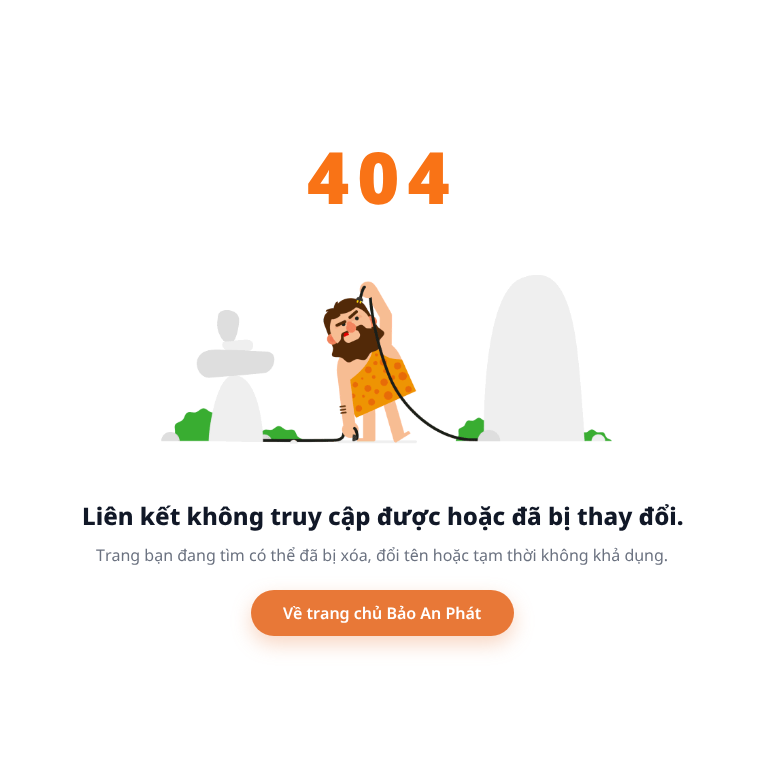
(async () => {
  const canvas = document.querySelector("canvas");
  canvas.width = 765;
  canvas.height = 763;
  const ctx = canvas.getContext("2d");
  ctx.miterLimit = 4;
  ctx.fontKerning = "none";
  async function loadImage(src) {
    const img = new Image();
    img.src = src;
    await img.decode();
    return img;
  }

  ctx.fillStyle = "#ffffff";
  ctx.fillRect(0, 0, 765, 763);
  ctx.drawImage(await loadImage("img/1.png"), 161, 275, 451, 169);
  ctx.fillStyle = "rgba(232, 120, 55, 0.3)";
  ctx.filter = "blur(10px)";
  ctx.beginPath();
  ctx.roundRect(251, 598, 263, 46, 23);
  ctx.fill();
  ctx.filter = "none";
  ctx.fillStyle = "#e87837";
  ctx.beginPath();
  ctx.roundRect(251, 590, 263, 46, 23);
  ctx.fill();
  ctx.letterSpacing = "8px";
  ctx.font = "900 72px Noto Sans";
  ctx.fillStyle = "#f97316";
  ctx.fillText("404", 307, 204);
  ctx.letterSpacing = "0px";
  ctx.font = "800 24px Noto Sans";
  ctx.fillStyle = "#111827";
  ctx.fillText("Liên kết không truy cập được hoặc đã bị thay đổi.", 82, 525);
  ctx.font = "16px Noto Sans";
  ctx.fillStyle = "#6b7280";
  ctx.fillText("Trang bạn đang tìm có thể đã bị xóa, đổi tên hoặc tạm thời không khả dụng.", 96, 561);
  ctx.font = "600 16px Noto Sans";
  ctx.fillStyle = "#ffffff";
  ctx.fillText("Về trang chủ Bảo An Phát", 283, 619);
})();
